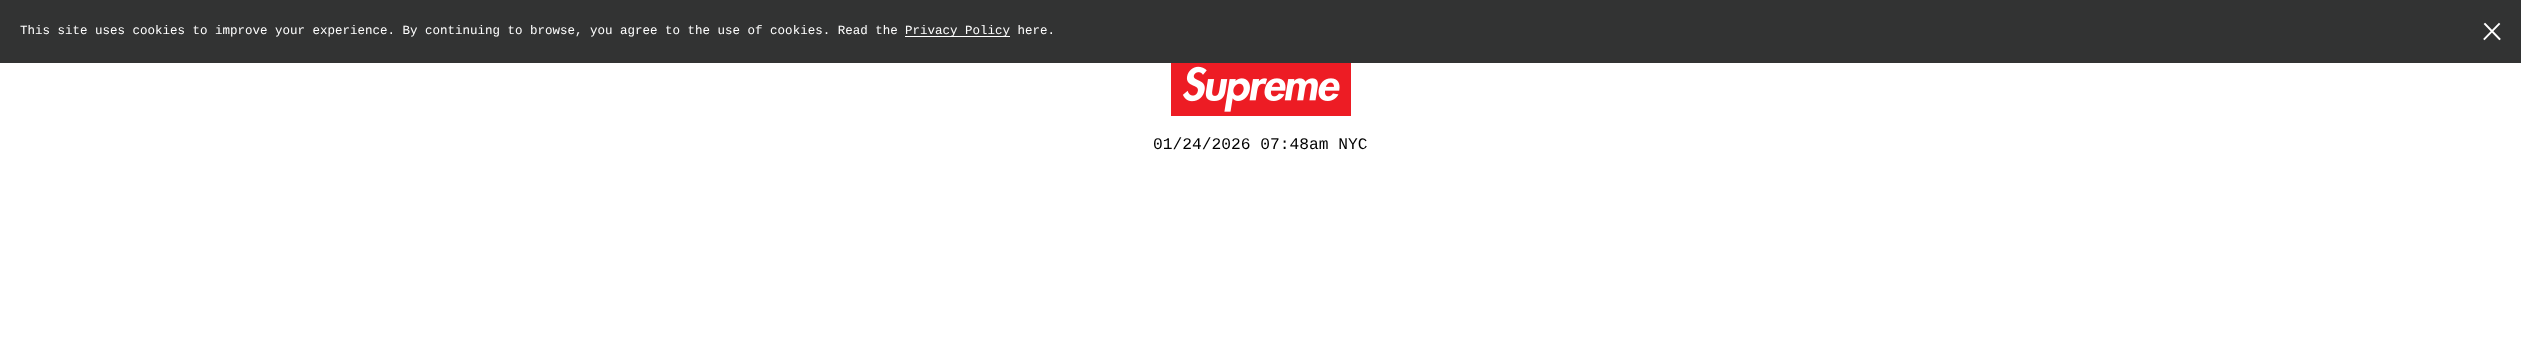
(async () => {
  const canvas = document.querySelector("canvas");
  canvas.width = 2521;
  canvas.height = 355;
  const ctx = canvas.getContext("2d");
  ctx.miterLimit = 4;
  ctx.fontKerning = "normal";
  async function loadImage(src) {
    const img = new Image();
    img.src = src;
    await img.decode();
    return img;
  }
  let path;

  ctx.fillStyle = "#ffffff";
  ctx.fillRect(0, 0, 2521, 355);
  ctx.fillStyle = "#323333";
  ctx.fillRect(0, 0, 2521, 63);
  ctx.fillStyle = "#ffffff";
  ctx.fillRect(905, 36, 105, 1);
  path = new Path2D("M2485 24L2499.5 39M2484.5 39L2499 24");
  ctx.strokeStyle = "#ffffff";
  ctx.lineWidth = 1.9;
  ctx.lineCap = "square";
  ctx.stroke(path);
  ctx.drawImage(await loadImage("img/1.png"), 1171, 63, 180, 53);
  ctx.font = "12.5px Liberation Mono";
  ctx.fillText("This site uses cookies to improve your experience. By continuing to browse, you agree to the use of cookies. Read the", 20, 34);
  ctx.fillText("Privacy Policy here.", 905, 34);
  ctx.font = "16.25px Liberation Mono";
  ctx.fillStyle = "#000000";
  ctx.fillText("01/24/2026 07:48am NYC", 1153, 149);
})();
